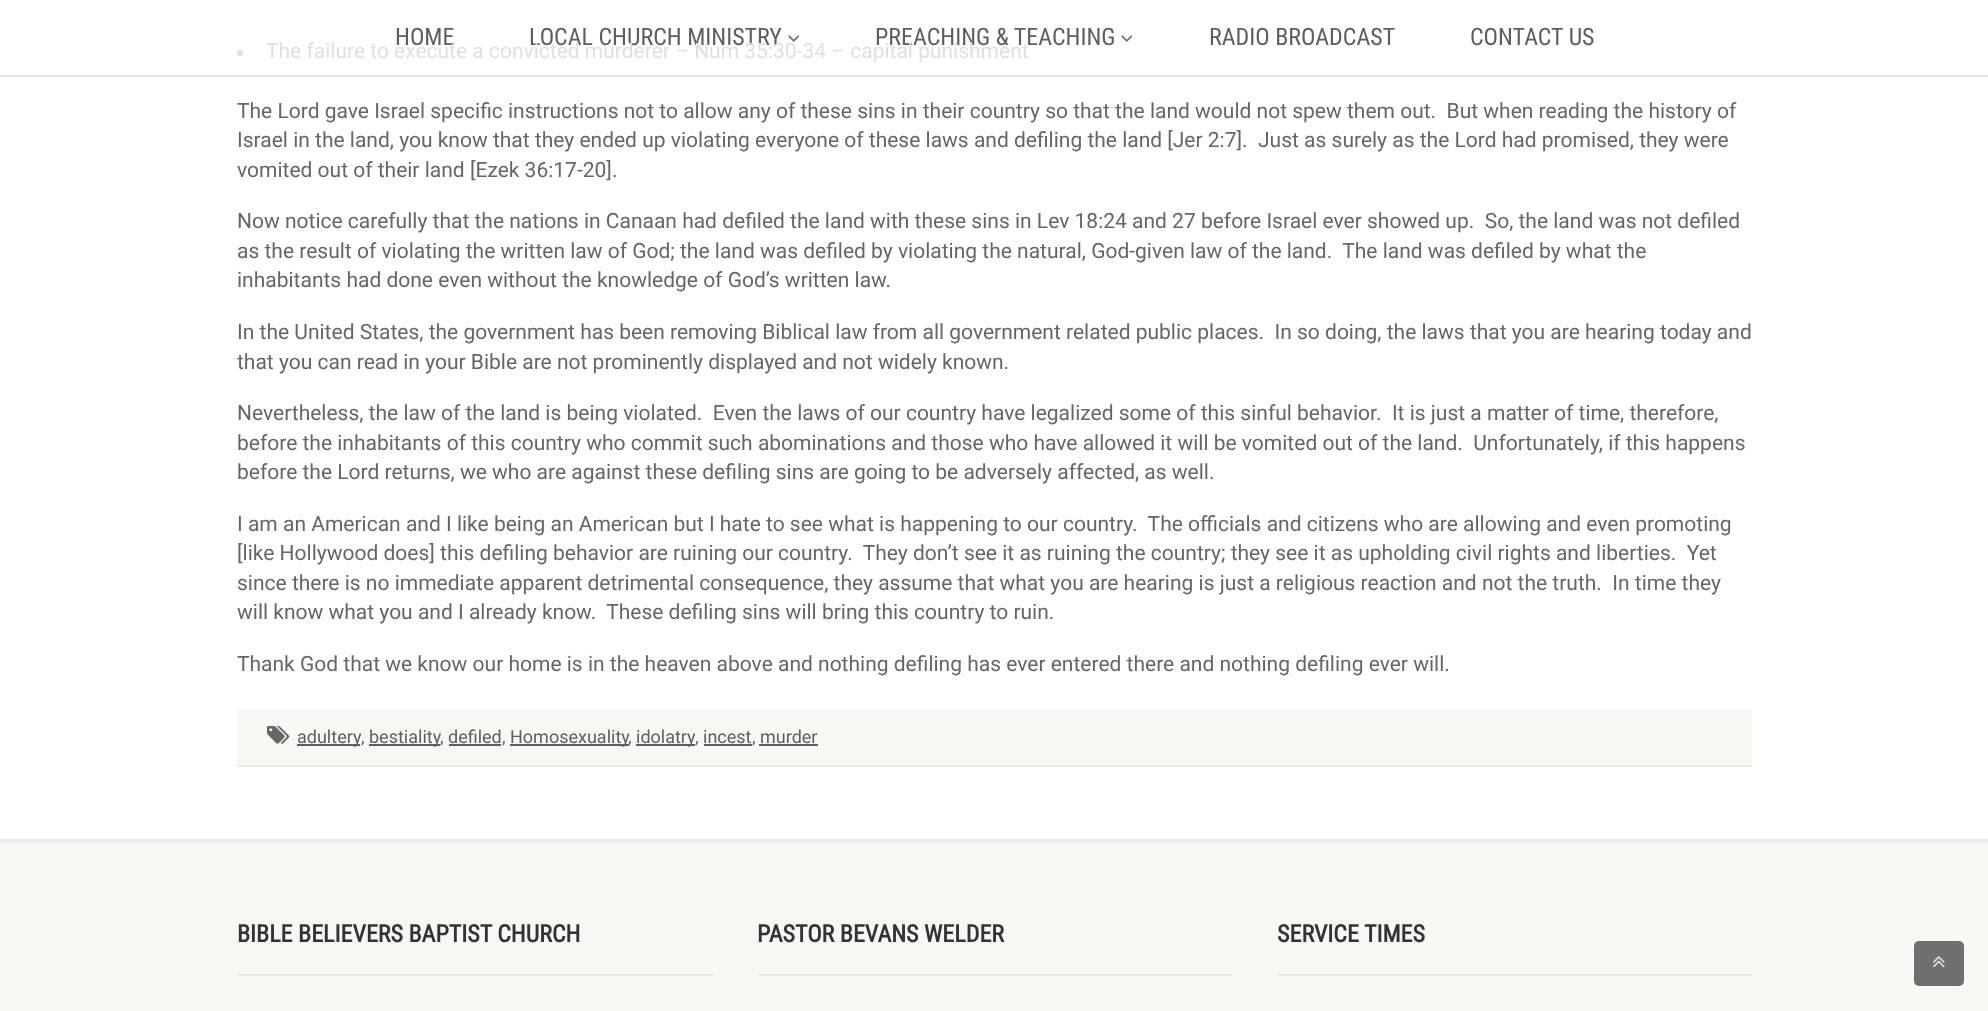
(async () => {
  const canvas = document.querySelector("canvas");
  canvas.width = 1988;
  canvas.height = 1011;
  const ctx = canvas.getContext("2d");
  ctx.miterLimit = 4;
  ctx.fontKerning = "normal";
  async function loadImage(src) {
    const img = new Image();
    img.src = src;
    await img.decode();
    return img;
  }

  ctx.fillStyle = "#ffffff";
  ctx.fillRect(0, 0, 1988, 1011);
  ctx.fillStyle = "#e6e6e6";
  ctx.fillRect(0, 75, 1988, 2);
  ctx.drawImage(await loadImage("img/1.png"), 788, 35, 12, 7);
  ctx.drawImage(await loadImage("img/1.png"), 1121, 35, 12, 7);
  ctx.fillStyle = "#e0e0e0";
  ctx.beginPath();
  ctx.arc(240, 53, 3, 0, Math.PI * 2);
  ctx.fill();
  ctx.fillStyle = "#f8f7f3";
  ctx.fillRect(237, 710, 1515, 55);
  ctx.fillStyle = "#eceae4";
  ctx.fillRect(237, 765, 1515, 2);
  ctx.drawImage(await loadImage("img/2.png"), 267, 726, 23, 18);
  for (const [x, y, w, h, color] of [
    [297, 744, 63, 2, "#5e5e5e"],
    [369, 744, 71, 2, "#5e5e5e"],
    [449, 744, 52, 2, "#5e5e5e"],
    [510, 744, 119, 2, "#5e5e5e"],
    [636, 744, 59, 2, "#5e5e5e"],
    [704, 744, 48, 2, "#5e5e5e"],
    [759, 744, 59, 2, "#5e5e5e"],
    [0, 839, 1988, 3, "#ededed"],
    [0, 842, 1988, 169, "#f8f7f3"],
    [237, 974, 476, 2, "#eceae4"],
    [758, 974, 474, 2, "#eceae4"],
    [1277, 974, 475, 2, "#eceae4"],
  ]) {
    ctx.fillStyle = color;
    ctx.fillRect(x, y, w, h);
  }
  ctx.fillStyle = "#706f6d";
  ctx.beginPath();
  ctx.roundRect(1914, 941, 50, 45, 5);
  ctx.fill();
  ctx.drawImage(await loadImage("img/3.png"), 1933, 956, 12, 12);
  ctx.font = "24px Roboto Condensed";
  ctx.fillStyle = "#5e5e5e";
  for (const [text, x, y] of [
    ["HOME", 395, 45],
    ["LOCAL CHURCH MINISTRY", 529, 45],
    ["PREACHING & TEACHING", 875, 45],
    ["RADIO BROADCAST", 1209, 45],
    ["CONTACT US", 1470, 45],
  ]) {
    ctx.fillText(text, x, y);
  }
  ctx.font = "21px Roboto";
  ctx.fillStyle = "#e0e0e0";
  ctx.fillText("The failure to execute a convicted murderer – Num 35:30-34 – capital punishment", 266, 58);
  ctx.fillStyle = "#666666";
  for (const [text, x, y] of [
    ["The Lord gave Israel specific instructions not to allow any of these sins in their country so that the land would not spew them out.  But when reading the history of", 237, 118],
    ["Israel in the land, you know that they ended up violating everyone of these laws and defiling the land [Jer 2:7].  Just as surely as the Lord had promised, they were", 237, 147],
    ["vomited out of their land [Ezek 36:17-20].", 237, 177],
    ["Now notice carefully that the nations in Canaan had defiled the land with these sins in Lev 18:24 and 27 before Israel ever showed up.  So, the land was not defiled", 237, 228],
    ["as the result of violating the written law of God; the land was defiled by violating the natural, God-given law of the land.  The land was defiled by what the", 237, 258],
    ["inhabitants had done even without the knowledge of God’s written law.", 237, 287],
    ["In the United States, the government has been removing Biblical law from all government related public places.  In so doing, the laws that you are hearing today and", 237, 339],
    ["that you can read in your Bible are not prominently displayed and not widely known.", 237, 369],
    ["Nevertheless, the law of the land is being violated.  Even the laws of our country have legalized some of this sinful behavior.  It is just a matter of time, therefore,", 237, 420],
    ["before the inhabitants of this country who commit such abominations and those who have allowed it will be vomited out of the land.  Unfortunately, if this happens", 237, 450],
    ["before the Lord returns, we who are against these defiling sins are going to be adversely affected, as well.", 237, 479],
    ["I am an American and I like being an American but I hate to see what is happening to our country.  The officials and citizens who are allowing and even promoting", 237, 531],
    ["[like Hollywood does] this defiling behavior are ruining our country.  They don’t see it as ruining the country; they see it as upholding civil rights and liberties.  Yet", 237, 560],
    ["since there is no immediate apparent detrimental consequence, they assume that what you are hearing is just a religious reaction and not the truth.  In time they", 237, 590],
    ["will know what you and I already know.  These defiling sins will bring this country to ruin.", 237, 619],
    ["Thank God that we know our home is in the heaven above and nothing defiling has ever entered there and nothing defiling ever will.", 237, 671],
  ]) {
    ctx.fillText(text, x, y);
  }
  ctx.font = "18px Roboto";
  ctx.fillStyle = "#5e5e5e";
  for (const [text, x, y] of [
    ["adultery", 297, 743],
    ["bestiality", 369, 743],
    ["defiled", 448, 743],
    ["Homosexuality", 510, 743],
    ["idolatry", 636, 743],
    ["incest", 703, 743],
    ["murder", 760, 743],
  ]) {
    ctx.fillText(text, x, y);
  }
  ctx.fillStyle = "#666666";
  for (const [text, x, y] of [
    [",", 361, 743],
    [",", 440, 743],
    [",", 502, 743],
    [",", 628, 743],
    [",", 695, 743],
    [",", 752, 743],
  ]) {
    ctx.fillText(text, x, y);
  }
  ctx.font = "bold 24px Roboto Condensed";
  ctx.fillStyle = "#333333";
  for (const [text, x, y] of [
    ["BIBLE BELIEVERS BAPTIST CHURCH", 237, 942],
    ["PASTOR BEVANS WELDER", 757, 942],
    ["SERVICE TIMES", 1277, 942],
  ]) {
    ctx.fillText(text, x, y);
  }
})();
